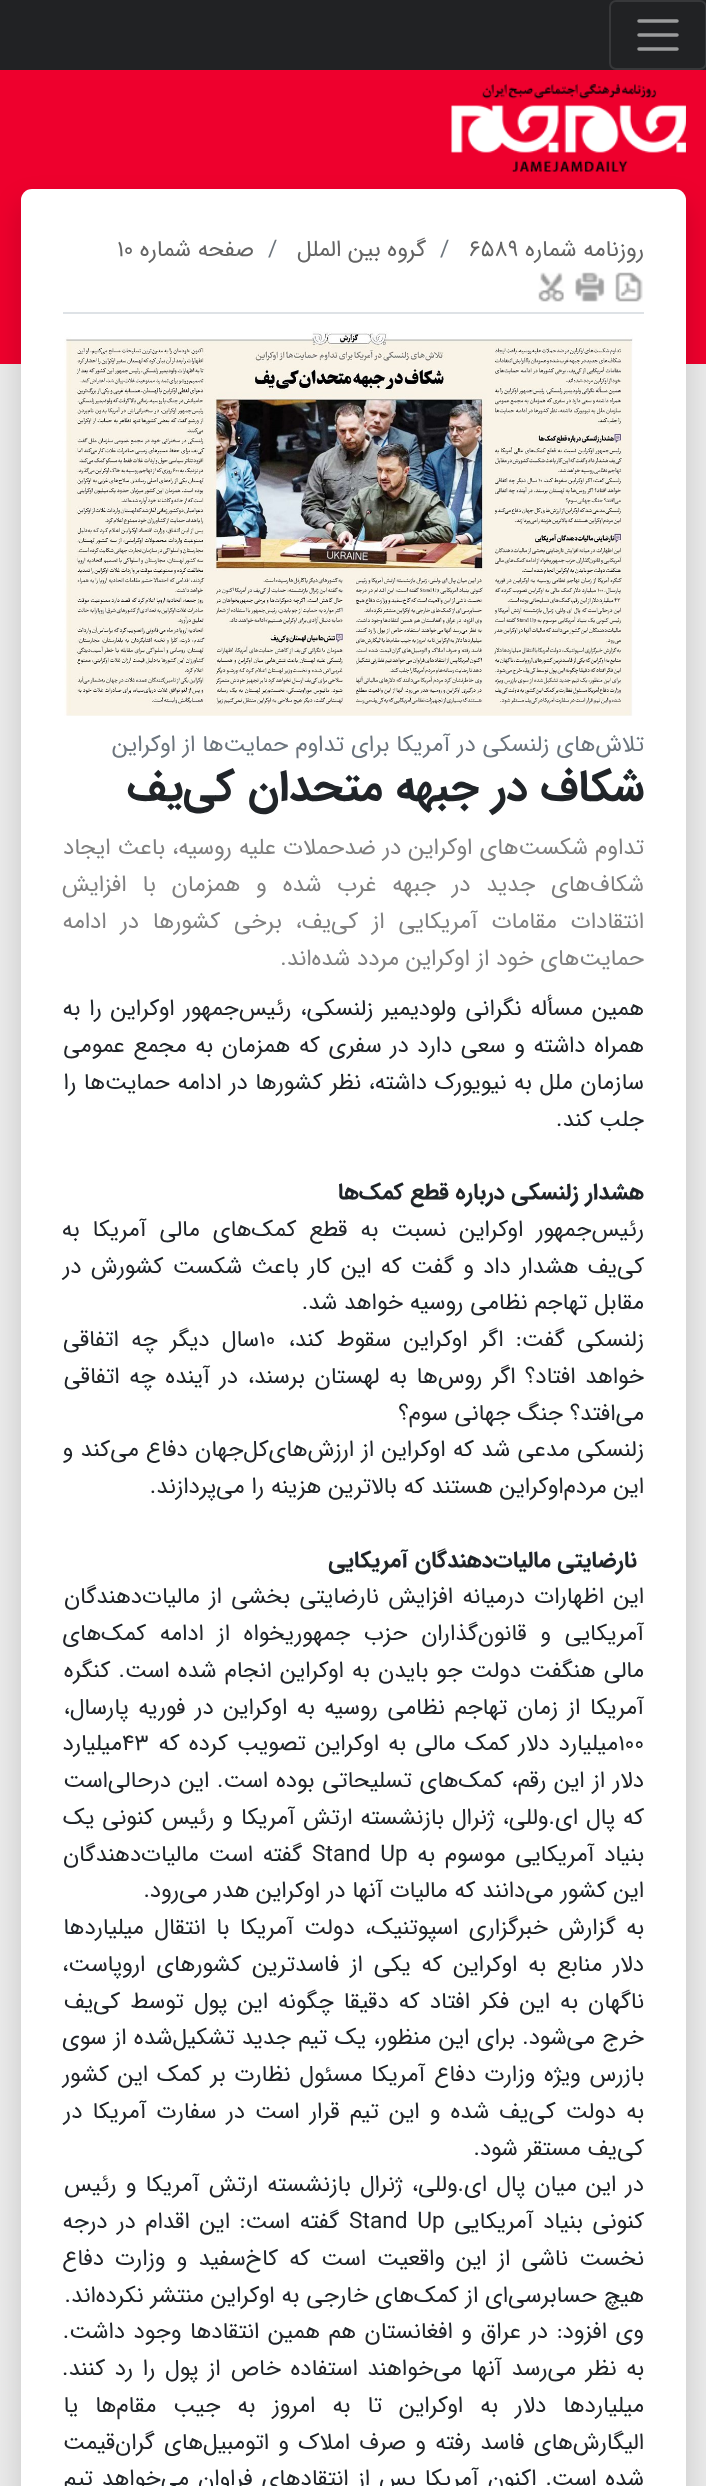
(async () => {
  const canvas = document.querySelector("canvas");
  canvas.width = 706;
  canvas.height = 2486;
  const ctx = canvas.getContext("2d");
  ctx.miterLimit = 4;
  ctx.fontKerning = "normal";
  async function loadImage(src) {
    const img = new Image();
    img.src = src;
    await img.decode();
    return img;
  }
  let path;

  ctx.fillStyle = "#eaeaea";
  ctx.fillRect(0, 0, 706, 2486);
  ctx.fillStyle = "#212224";
  ctx.fillRect(0, 0, 706, 70);
  ctx.beginPath();
  ctx.roundRect(610, 1, 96, 68, 6);
  ctx.strokeStyle = "#37383a";
  ctx.lineWidth = 2;
  ctx.stroke();
  path = new Path2D("M639 21H677M639 35H677M639 49H677");
  ctx.strokeStyle = "#9b9c9c";
  ctx.lineWidth = 3.5;
  ctx.lineCap = "round";
  ctx.stroke(path);
  ctx.fillStyle = "#ee002d";
  ctx.fillRect(0, 70, 706, 294);
  ctx.drawImage(await loadImage("img/1.png"), 451, 84, 235, 88);
  ctx.fillStyle = "rgba(0, 0, 0, 0.15)";
  ctx.filter = "blur(14px)";
  ctx.beginPath();
  ctx.roundRect(21, 203, 665, 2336, 11);
  ctx.fill();
  ctx.filter = "none";
  ctx.fillStyle = "#ffffff";
  ctx.beginPath();
  ctx.roundRect(21, 189, 665, 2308, 11);
  ctx.fill();
  ctx.fillStyle = "#dee2e6";
  ctx.fillRect(63, 312, 581, 2);
  ctx.drawImage(await loadImage("img/2.png"), 615, 272, 28, 30);
  ctx.drawImage(await loadImage("img/3.png"), 575, 272, 30, 30);
  ctx.drawImage(await loadImage("img/4.png"), 538, 272, 26, 30);
  ctx.drawImage(await loadImage("img/5.png"), 64, 331, 569, 385);
  ctx.direction = "rtl";
  ctx.font = "22.75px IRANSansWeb";
  ctx.fillStyle = "#646464";
  ctx.fillText("روزنامه شماره", 644, 256);
  ctx.direction = "ltr";
  ctx.fillText("۶۵۸۹", 469, 256);
  ctx.fillStyle = "#6c757d";
  ctx.fillText("/", 440, 256);
  ctx.direction = "rtl";
  ctx.fillStyle = "#646464";
  ctx.fillText("گروه بین الملل", 426, 256);
  ctx.direction = "ltr";
  ctx.fillStyle = "#6c757d";
  ctx.fillText("/", 268, 256);
  ctx.direction = "rtl";
  ctx.fillStyle = "#646464";
  ctx.fillText("صفحه شماره", 254, 256);
  ctx.direction = "ltr";
  ctx.fillText("۱۰", 117, 256);
  ctx.direction = "rtl";
  ctx.fillStyle = "#6c757d";
  ctx.fillText("تلاش‌های زلنسکی در آمریکا برای تداوم حمایت‌ها از اوکراین", 644, 751);
  ctx.font = "bold 43.5px IRANSansWeb";
  ctx.fillStyle = "#212529";
  ctx.fillText("شکاف در جبهه متحدان کی‌یف", 644, 800);
  ctx.wordSpacing = "0.25px";
  ctx.font = "22.75px IRANSansWeb";
  ctx.fillStyle = "#808080";
  ctx.fillText("تداوم شکست‌های اوکراین در ضدحملات علیه روسیه، باعث ایجاد", 644, 854);
  ctx.wordSpacing = "9px";
  ctx.fillText("شکاف‌های جدید در جبهه غرب شده و همزمان با افزایش", 644, 891);
  ctx.wordSpacing = "7px";
  ctx.fillText("انتقادات مقامات آمریکایی از کی‌یف، برخی کشورها در ادامه", 644, 928);
  ctx.wordSpacing = "0px";
  ctx.fillText("حمایت‌های خود از اوکراین مردد شده‌اند.", 644, 965);
  ctx.wordSpacing = "2px";
  ctx.fillStyle = "#212529";
  ctx.fillText("همین مسأله نگرانی ولودیمیر زلنسکی، رئیس‌جمهور اوکراین را به", 644, 1015);
  ctx.wordSpacing = "1.75px";
  ctx.fillText("همراه داشته و سعی دارد در سفری که همزمان به مجمع عمومی", 644, 1052);
  ctx.wordSpacing = "0.75px";
  ctx.fillText("سازمان ملل به نیویورک داشته، نظر کشورها در ادامه حمایت‌ها را", 644, 1089);
  ctx.wordSpacing = "0px";
  ctx.fillText("جلب کند.", 644, 1126);
  ctx.font = "bold 22.75px IRANSansWeb";
  ctx.fillText("هشدار زلنسکی درباره قطع کمک‌ها", 644, 1199);
  ctx.wordSpacing = "6px";
  ctx.font = "22.75px IRANSansWeb";
  ctx.fillText("رئیس‌جمهور اوکراین نسبت به قطع کمک‌های مالی آمریکا به", 644, 1236);
  ctx.wordSpacing = "2.4px";
  ctx.fillText("کی‌یف هشدار داد و گفت که این کار باعث شکست کشورش در", 644, 1273);
  ctx.wordSpacing = "0px";
  ctx.fillText("مقابل تهاجم نظامی روسیه خواهد شد.", 644, 1309);
  ctx.wordSpacing = "5.5px";
  ctx.fillText("زلنسکی گفت: اگر اوکراین سقوط کند،", 644, 1346);
  ctx.wordSpacing = "0px";
  ctx.direction = "ltr";
  ctx.fillText("۱۰", 259, 1346);
  ctx.wordSpacing = "5.5px";
  ctx.direction = "rtl";
  ctx.fillText("سال دیگر چه اتفاقی", 259, 1346);
  ctx.wordSpacing = "2.75px";
  ctx.fillText("خواهد افتاد؟ اگر روس‌ها به لهستان برسند، در آینده چه اتفاقی", 644, 1383);
  ctx.wordSpacing = "0px";
  ctx.fillText("می‌افتد؟ جنگ جهانی سوم؟", 644, 1420);
  ctx.wordSpacing = "0.5px";
  ctx.fillText("زلنسکی مدعی شد که اوکراین از ارزش‌های‌کل‌جهان دفاع می‌کند و", 644, 1456);
  ctx.wordSpacing = "0px";
  ctx.fillText("این مردم‌اوکراین هستند که بالاترین هزینه را می‌پردازند.", 644, 1493);
  ctx.font = "bold 22.75px IRANSansWeb";
  ctx.fillText("نارضایتی مالیات‌دهندگان آمریکایی", 637, 1567);
  ctx.wordSpacing = "2.5px";
  ctx.font = "22.75px IRANSansWeb";
  ctx.fillText("این اظهارات درمیانه افزایش نارضایتی بخشی از مالیات‌دهندگان", 644, 1603);
  ctx.wordSpacing = "6.75px";
  ctx.fillText("آمریکایی و قانون‌گذاران حزب جمهوریخواه از ادامه کمک‌های", 644, 1640);
  ctx.wordSpacing = "1.25px";
  ctx.fillText("مالی هنگفت دولت جو بایدن به اوکراین انجام شده است. کنگره", 644, 1677);
  ctx.wordSpacing = "2.75px";
  ctx.fillText("آمریکا از زمان تهاجم نظامی روسیه به اوکراین در فوریه پارسال،", 644, 1714);
  ctx.wordSpacing = "0px";
  ctx.direction = "ltr";
  ctx.fillText("۱۰۰", 618, 1750);
  ctx.wordSpacing = "2.25px";
  ctx.direction = "rtl";
  ctx.fillText("میلیارد دلار کمک مالی به اوکراین تصویب کرده که", 618, 1750);
  ctx.wordSpacing = "0px";
  ctx.direction = "ltr";
  ctx.fillText("۴۳", 122, 1750);
  ctx.direction = "rtl";
  ctx.fillText("میلیارد", 122, 1750);
  ctx.wordSpacing = "1px";
  ctx.fillText("دلار از این رقم، کمک‌های تسلیحاتی بوده است. این درحالی‌است", 644, 1787);
  ctx.wordSpacing = "1.1px";
  ctx.fillText("‌که پال ای.وللی، ژنرال بازنشسته ارتش آمریکا و رئیس کنونی یک", 644, 1824);
  ctx.wordSpacing = "2.75px";
  ctx.fillText("بنیاد آمریکایی موسوم به", 644, 1861);
  ctx.direction = "ltr";
  ctx.fillText("Stand Up", 312, 1861);
  ctx.direction = "rtl";
  ctx.fillText("گفته است مالیات‌دهندگان", 302, 1861);
  ctx.wordSpacing = "0px";
  ctx.fillText("این کشور می‌دانند که مالیات آنها در اوکراین هدر می‌رود.", 644, 1897);
  ctx.wordSpacing = "3.5px";
  ctx.fillText("به گزارش خبرگزاری اسپوتنیک، دولت آمریکا با انتقال میلیاردها", 644, 1934);
  ctx.wordSpacing = "4px";
  ctx.fillText("دلار منابع به اوکراین که یکی از فاسدترین کشورهای اروپاست،", 644, 1971);
  ctx.wordSpacing = "3.25px";
  ctx.fillText("ناگهان به این فکر افتاد که دقیقا چگونه این پول توسط کی‌یف", 644, 2008);
  ctx.wordSpacing = "0.5px";
  ctx.fillText("خرج می‌شود. برای این منظور، یک تیم جدید تشکیل‌شده از سوی", 644, 2044);
  ctx.wordSpacing = "1.9px";
  ctx.fillText("بازرس ویژه وزارت دفاع آمریکا مسئول نظارت بر کمک این کشور", 644, 2081);
  ctx.wordSpacing = "3.25px";
  ctx.fillText("به دولت کی‌یف شده و این تیم قرار است در سفارت آمریکا در", 644, 2118);
  ctx.wordSpacing = "0px";
  ctx.fillText("کی‌یف مستقر شود.", 644, 2155);
  ctx.wordSpacing = "2.25px";
  ctx.fillText("در این میان پال ای.وللی، ژنرال بازنشسته ارتش آمریکا و رئیس", 644, 2191);
  ctx.wordSpacing = "2.75px";
  ctx.fillText("کنونی بنیاد آمریکایی", 644, 2228);
  ctx.direction = "ltr";
  ctx.fillText("Stand Up", 349, 2228);
  ctx.direction = "rtl";
  ctx.fillText("گفته است: این اقدام در درجه", 339, 2228);
  ctx.wordSpacing = "4.25px";
  ctx.fillText("نخست ناشی از این واقعیت است که کاخ‌سفید و وزارت دفاع", 644, 2265);
  ctx.wordSpacing = "0px";
  ctx.fillText("هیچ حسابرسی‌ای از کمک‌های خارجی به اوکراین منتشر نکرده‌اند.", 644, 2302);
  ctx.wordSpacing = "1.75px";
  ctx.fillText("وی افزود: در عراق و افغانستان هم همین انتقادها وجود داشت.", 644, 2338);
  ctx.wordSpacing = "2.75px";
  ctx.fillText("به نظر می‌رسد آنها می‌خواهند استفاده خاص از پول را رد کنند.", 644, 2375);
  ctx.wordSpacing = "10.25px";
  ctx.fillText("میلیاردها دلار به اوکراین تا به امروز به جیب مقام‌ها یا", 644, 2412);
  ctx.wordSpacing = "2.4px";
  ctx.fillText("الیگارش‌های فاسد رفته و صرف املاک و اتومبیل‌های گران‌قیمت", 644, 2449);
  ctx.wordSpacing = "2px";
  ctx.fillText("شده است. اکنون آمریکا پس از انتقادهای فراوان می‌خواهد تیم", 644, 2485);
})();
